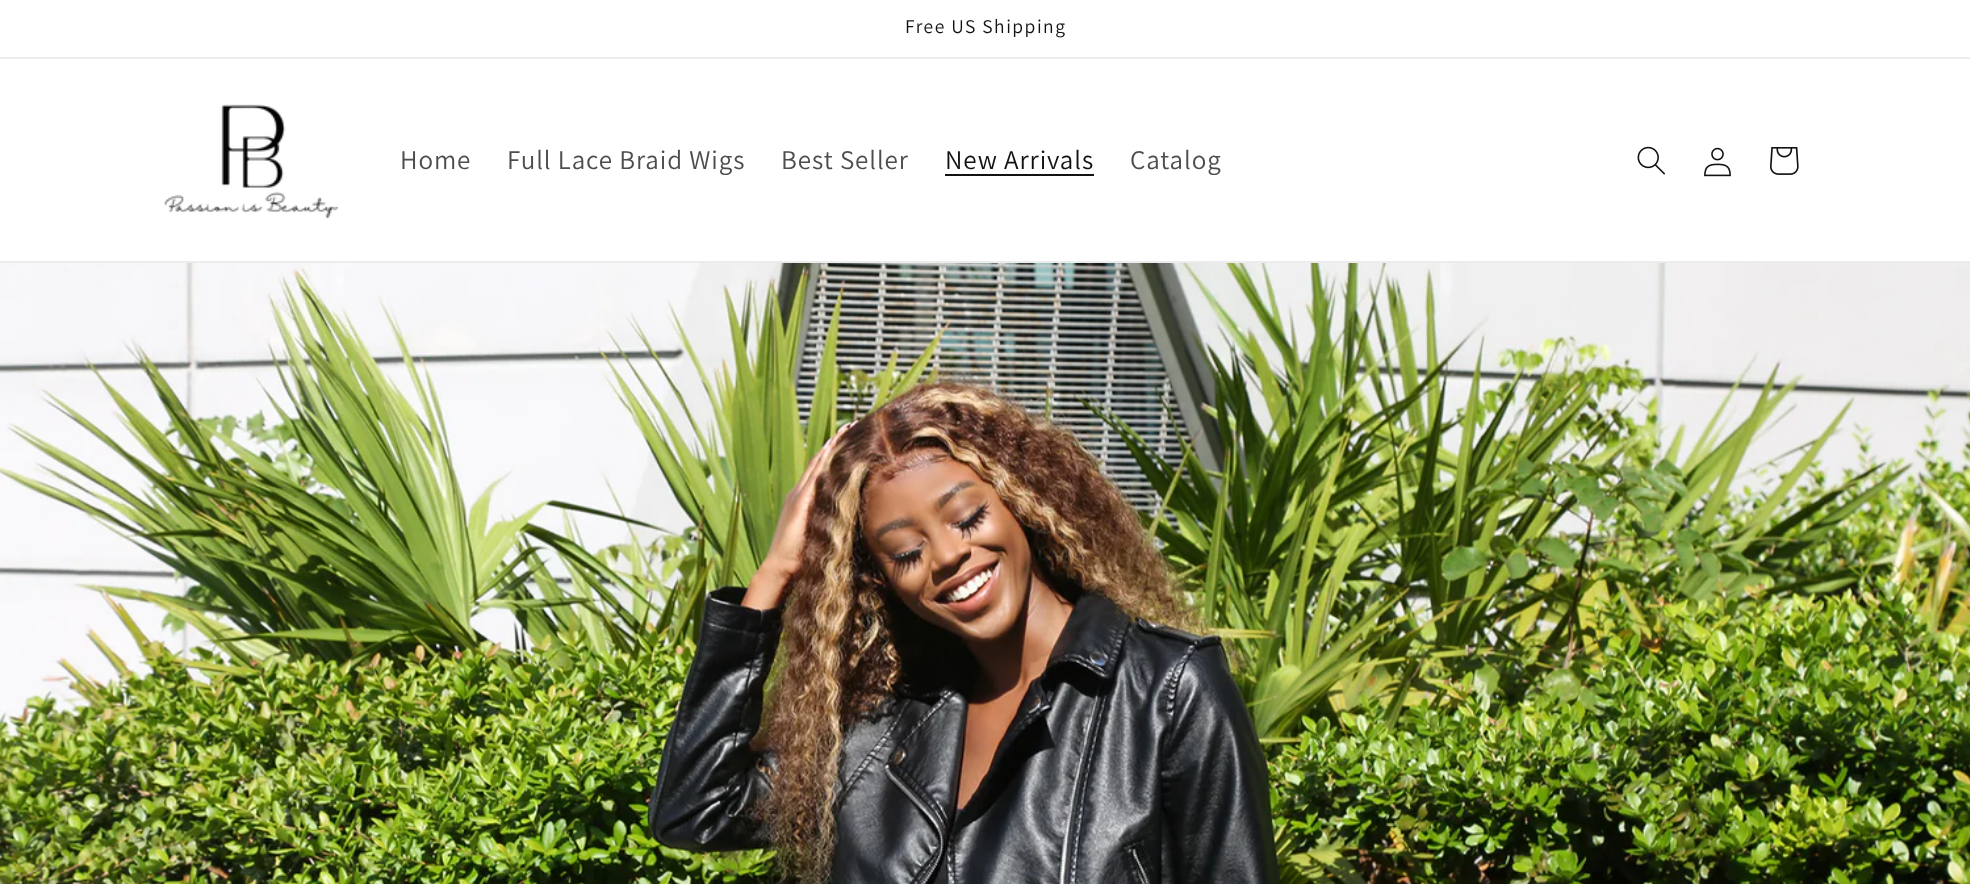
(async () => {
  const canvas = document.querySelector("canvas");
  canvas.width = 1970;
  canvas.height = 884;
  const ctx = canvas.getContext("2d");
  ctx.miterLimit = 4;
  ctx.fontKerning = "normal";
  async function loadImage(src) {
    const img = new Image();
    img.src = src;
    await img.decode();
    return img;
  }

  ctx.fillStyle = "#ffffff";
  ctx.fillRect(0, 0, 1970, 884);
  ctx.fillStyle = "#ececec";
  ctx.fillRect(0, 57, 1970, 2);
  ctx.fillRect(0, 261, 1970, 2);
  ctx.drawImage(await loadImage("img/1.png"), 164, 104, 175, 115);
  ctx.fillStyle = "#121212";
  ctx.fillRect(945, 174, 149, 2);
  ctx.drawImage(await loadImage("img/2.png"), 1637, 146, 28, 29);
  ctx.drawImage(await loadImage("img/3.png"), 1704, 147, 27, 30);
  ctx.drawImage(await loadImage("img/4.png"), 1770, 147, 29, 28);
  ctx.drawImage(await loadImage("img/5.png"), 0, 263, 1970, 621);
  ctx.letterSpacing = "1.5px";
  ctx.font = "19.5px Assistant";
  ctx.fillText("Free US Shipping", 905, 33);
  ctx.letterSpacing = "0.9px";
  ctx.font = "27px Assistant";
  ctx.fillStyle = "#4d4d4d";
  for (const [text, x, y] of [
    ["Home", 400, 169],
    ["Full Lace Braid Wigs", 507, 169],
    ["Best Seller", 781, 169],
  ]) {
    ctx.fillText(text, x, y);
  }
  ctx.fillStyle = "#121212";
  ctx.fillText("New Arrivals", 945, 169);
  ctx.fillStyle = "#4d4d4d";
  ctx.fillText("Catalog", 1130, 169);
})();
